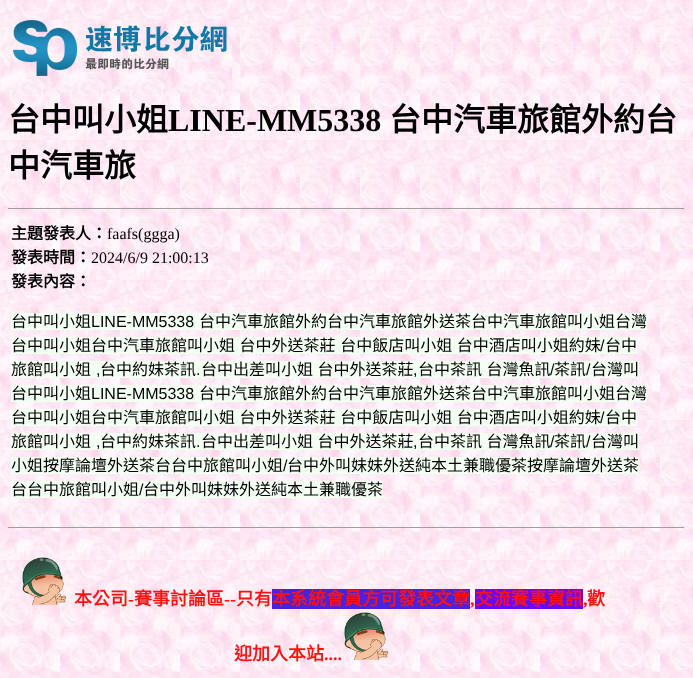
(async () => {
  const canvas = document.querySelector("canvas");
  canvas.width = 693;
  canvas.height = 678;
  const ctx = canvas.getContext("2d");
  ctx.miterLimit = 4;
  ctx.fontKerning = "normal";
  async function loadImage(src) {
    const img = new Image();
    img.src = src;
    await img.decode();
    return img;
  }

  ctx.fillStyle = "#ffffff";
  ctx.fillRect(0, 0, 693, 678);
  ctx.drawImage(await loadImage("img/1.png"), 0, 0, 693, 678);
  ctx.drawImage(await loadImage("img/2.png"), 10, 20, 222, 69);
  for (const [x, y, w, h, color] of [
    [8, 208, 677, 1, "#9f9f9f"],
    [684, 208, 1, 1, "#eeeeee"],
    [11, 313, 636, 17, "#f4fff4"],
    [11, 337, 626, 17, "#f4fff4"],
    [11, 361, 628, 17, "#f4fff4"],
    [11, 385, 636, 17, "#f4fff4"],
    [11, 409, 626, 17, "#f4fff4"],
    [11, 433, 628, 17, "#f4fff4"],
    [11, 457, 628, 17, "#f4fff4"],
    [11, 481, 372, 17, "#f4fff4"],
    [8, 527, 677, 1, "#9f9f9f"],
    [684, 527, 1, 1, "#eeeeee"],
  ]) {
    ctx.fillStyle = color;
    ctx.fillRect(x, y, w, h);
  }
  ctx.drawImage(await loadImage("img/3.png"), 22, 557, 45, 48);
  ctx.fillStyle = "#4822dd";
  ctx.fillRect(272, 589, 198, 20);
  ctx.fillStyle = "#6809f7";
  ctx.fillRect(475, 589, 108, 20);
  ctx.drawImage(await loadImage("img/4.png"), 344, 612, 45, 48);
  ctx.font = "bold 32px Noto Sans CJK TC";
  ctx.fillStyle = "#000000";
  ctx.fillText("台中叫小姐", 8, 131);
  ctx.font = "bold 32px Liberation Serif";
  ctx.fillText("LINE-MM5338", 168, 131);
  ctx.font = "bold 32px Noto Sans CJK TC";
  ctx.fillText("台中汽車旅館外約台", 389, 131);
  ctx.fillText("中汽車旅", 8, 177);
  ctx.font = "bold 16px Noto Sans CJK TC";
  ctx.fillText("主題發表人：", 11, 239);
  ctx.font = "16px Liberation Serif";
  ctx.fillText("faafs(ggga)", 107, 239);
  ctx.font = "bold 16px Noto Sans CJK TC";
  ctx.fillText("發表時間：", 11, 263);
  ctx.font = "16px Liberation Serif";
  ctx.fillText("2024/6/9 21:00:13", 91, 263);
  ctx.font = "bold 16px Noto Sans CJK TC";
  ctx.fillText("發表內容：", 11, 287);
  ctx.font = "16px Noto Sans CJK TC";
  ctx.fillText("台中叫小姐", 11, 327);
  ctx.font = "16px Liberation Sans";
  ctx.fillText("LINE-MM5338", 91, 327);
  ctx.font = "16px Noto Sans CJK TC";
  ctx.fillText("台中汽車旅館外約台中汽車旅館外送茶台中汽車旅館叫小姐台灣", 199, 327);
  ctx.wordSpacing = "1px";
  ctx.fillText("台中叫小姐台中汽車旅館叫小姐 台中外送茶莊 台中飯店叫小姐 台中酒店叫小姐約妹", 11, 351);
  ctx.wordSpacing = "0px";
  ctx.font = "16px Liberation Sans";
  ctx.fillText("/", 600, 351);
  ctx.font = "16px Noto Sans CJK TC";
  ctx.fillText("台中", 605, 351);
  ctx.fillText("旅館叫小姐", 11, 375);
  ctx.font = "16px Liberation Sans";
  ctx.fillText(",", 96, 375);
  ctx.font = "16px Noto Sans CJK TC";
  ctx.fillText("台中約妹茶訊", 100, 375);
  ctx.font = "16px Liberation Sans";
  ctx.fillText(".", 196, 375);
  ctx.wordSpacing = "1px";
  ctx.font = "16px Noto Sans CJK TC";
  ctx.fillText("台中出差叫小姐 台中外送茶莊", 201, 375);
  ctx.wordSpacing = "0px";
  ctx.font = "16px Liberation Sans";
  ctx.fillText(",", 413, 375);
  ctx.wordSpacing = "1px";
  ctx.font = "16px Noto Sans CJK TC";
  ctx.fillText("台中茶訊 台灣魚訊", 418, 375);
  ctx.wordSpacing = "0px";
  ctx.font = "16px Liberation Sans";
  ctx.fillText("/", 550, 375);
  ctx.font = "16px Noto Sans CJK TC";
  ctx.fillText("茶訊", 554, 375);
  ctx.font = "16px Liberation Sans";
  ctx.fillText("/", 586, 375);
  ctx.font = "16px Noto Sans CJK TC";
  ctx.fillText("台灣叫", 591, 375);
  ctx.fillText("台中叫小姐", 11, 399);
  ctx.font = "16px Liberation Sans";
  ctx.fillText("LINE-MM5338", 91, 399);
  ctx.font = "16px Noto Sans CJK TC";
  ctx.fillText("台中汽車旅館外約台中汽車旅館外送茶台中汽車旅館叫小姐台灣", 199, 399);
  ctx.wordSpacing = "1px";
  ctx.fillText("台中叫小姐台中汽車旅館叫小姐 台中外送茶莊 台中飯店叫小姐 台中酒店叫小姐約妹", 11, 423);
  ctx.wordSpacing = "0px";
  ctx.font = "16px Liberation Sans";
  ctx.fillText("/", 600, 423);
  ctx.font = "16px Noto Sans CJK TC";
  ctx.fillText("台中", 605, 423);
  ctx.fillText("旅館叫小姐", 11, 447);
  ctx.font = "16px Liberation Sans";
  ctx.fillText(",", 96, 447);
  ctx.font = "16px Noto Sans CJK TC";
  ctx.fillText("台中約妹茶訊", 100, 447);
  ctx.font = "16px Liberation Sans";
  ctx.fillText(".", 196, 447);
  ctx.wordSpacing = "1px";
  ctx.font = "16px Noto Sans CJK TC";
  ctx.fillText("台中出差叫小姐 台中外送茶莊", 201, 447);
  ctx.wordSpacing = "0px";
  ctx.font = "16px Liberation Sans";
  ctx.fillText(",", 413, 447);
  ctx.wordSpacing = "1px";
  ctx.font = "16px Noto Sans CJK TC";
  ctx.fillText("台中茶訊 台灣魚訊", 418, 447);
  ctx.wordSpacing = "0px";
  ctx.font = "16px Liberation Sans";
  ctx.fillText("/", 550, 447);
  ctx.font = "16px Noto Sans CJK TC";
  ctx.fillText("茶訊", 554, 447);
  ctx.font = "16px Liberation Sans";
  ctx.fillText("/", 586, 447);
  ctx.font = "16px Noto Sans CJK TC";
  ctx.fillText("台灣叫", 591, 447);
  ctx.fillText("小姐按摩論壇外送茶台台中旅館叫小姐", 11, 471);
  ctx.font = "16px Liberation Sans";
  ctx.fillText("/", 283, 471);
  ctx.font = "16px Noto Sans CJK TC";
  ctx.fillText("台中外叫妹妹外送純本土兼職優茶按摩論壇外送茶", 287, 471);
  ctx.fillText("台台中旅館叫小姐", 11, 495);
  ctx.font = "16px Liberation Sans";
  ctx.fillText("/", 139, 495);
  ctx.font = "16px Noto Sans CJK TC";
  ctx.fillText("台中外叫妹妹外送純本土兼職優茶", 143, 495);
  ctx.font = "bold 18px Noto Sans CJK TC";
  ctx.fillStyle = "#ff1111";
  ctx.fillText("本公司", 74, 605);
  ctx.font = "bold 18px Liberation Serif";
  ctx.fillText("-", 128, 605);
  ctx.font = "bold 18px Noto Sans CJK TC";
  ctx.fillText("賽事討論區", 134, 605);
  ctx.font = "bold 18px Liberation Serif";
  ctx.fillText("--", 224, 605);
  ctx.font = "bold 18px Noto Sans CJK TC";
  for (const [text, x, y] of [
    ["只有", 236, 605],
    ["本系統會員方可發表文章", 272, 605],
    ["交流賽事資訊", 475, 605],
    ["歡", 587, 605],
  ]) {
    ctx.fillText(text, x, y);
  }
  ctx.font = "bold 18px Liberation Serif";
  ctx.fillText(",", 470, 605);
  ctx.fillText(",", 583, 605);
  ctx.font = "bold 18px Noto Sans CJK TC";
  ctx.fillText("迎加入本站", 234, 660);
  ctx.font = "bold 18px Liberation Serif";
  ctx.fillText("....", 324, 660);
})();
